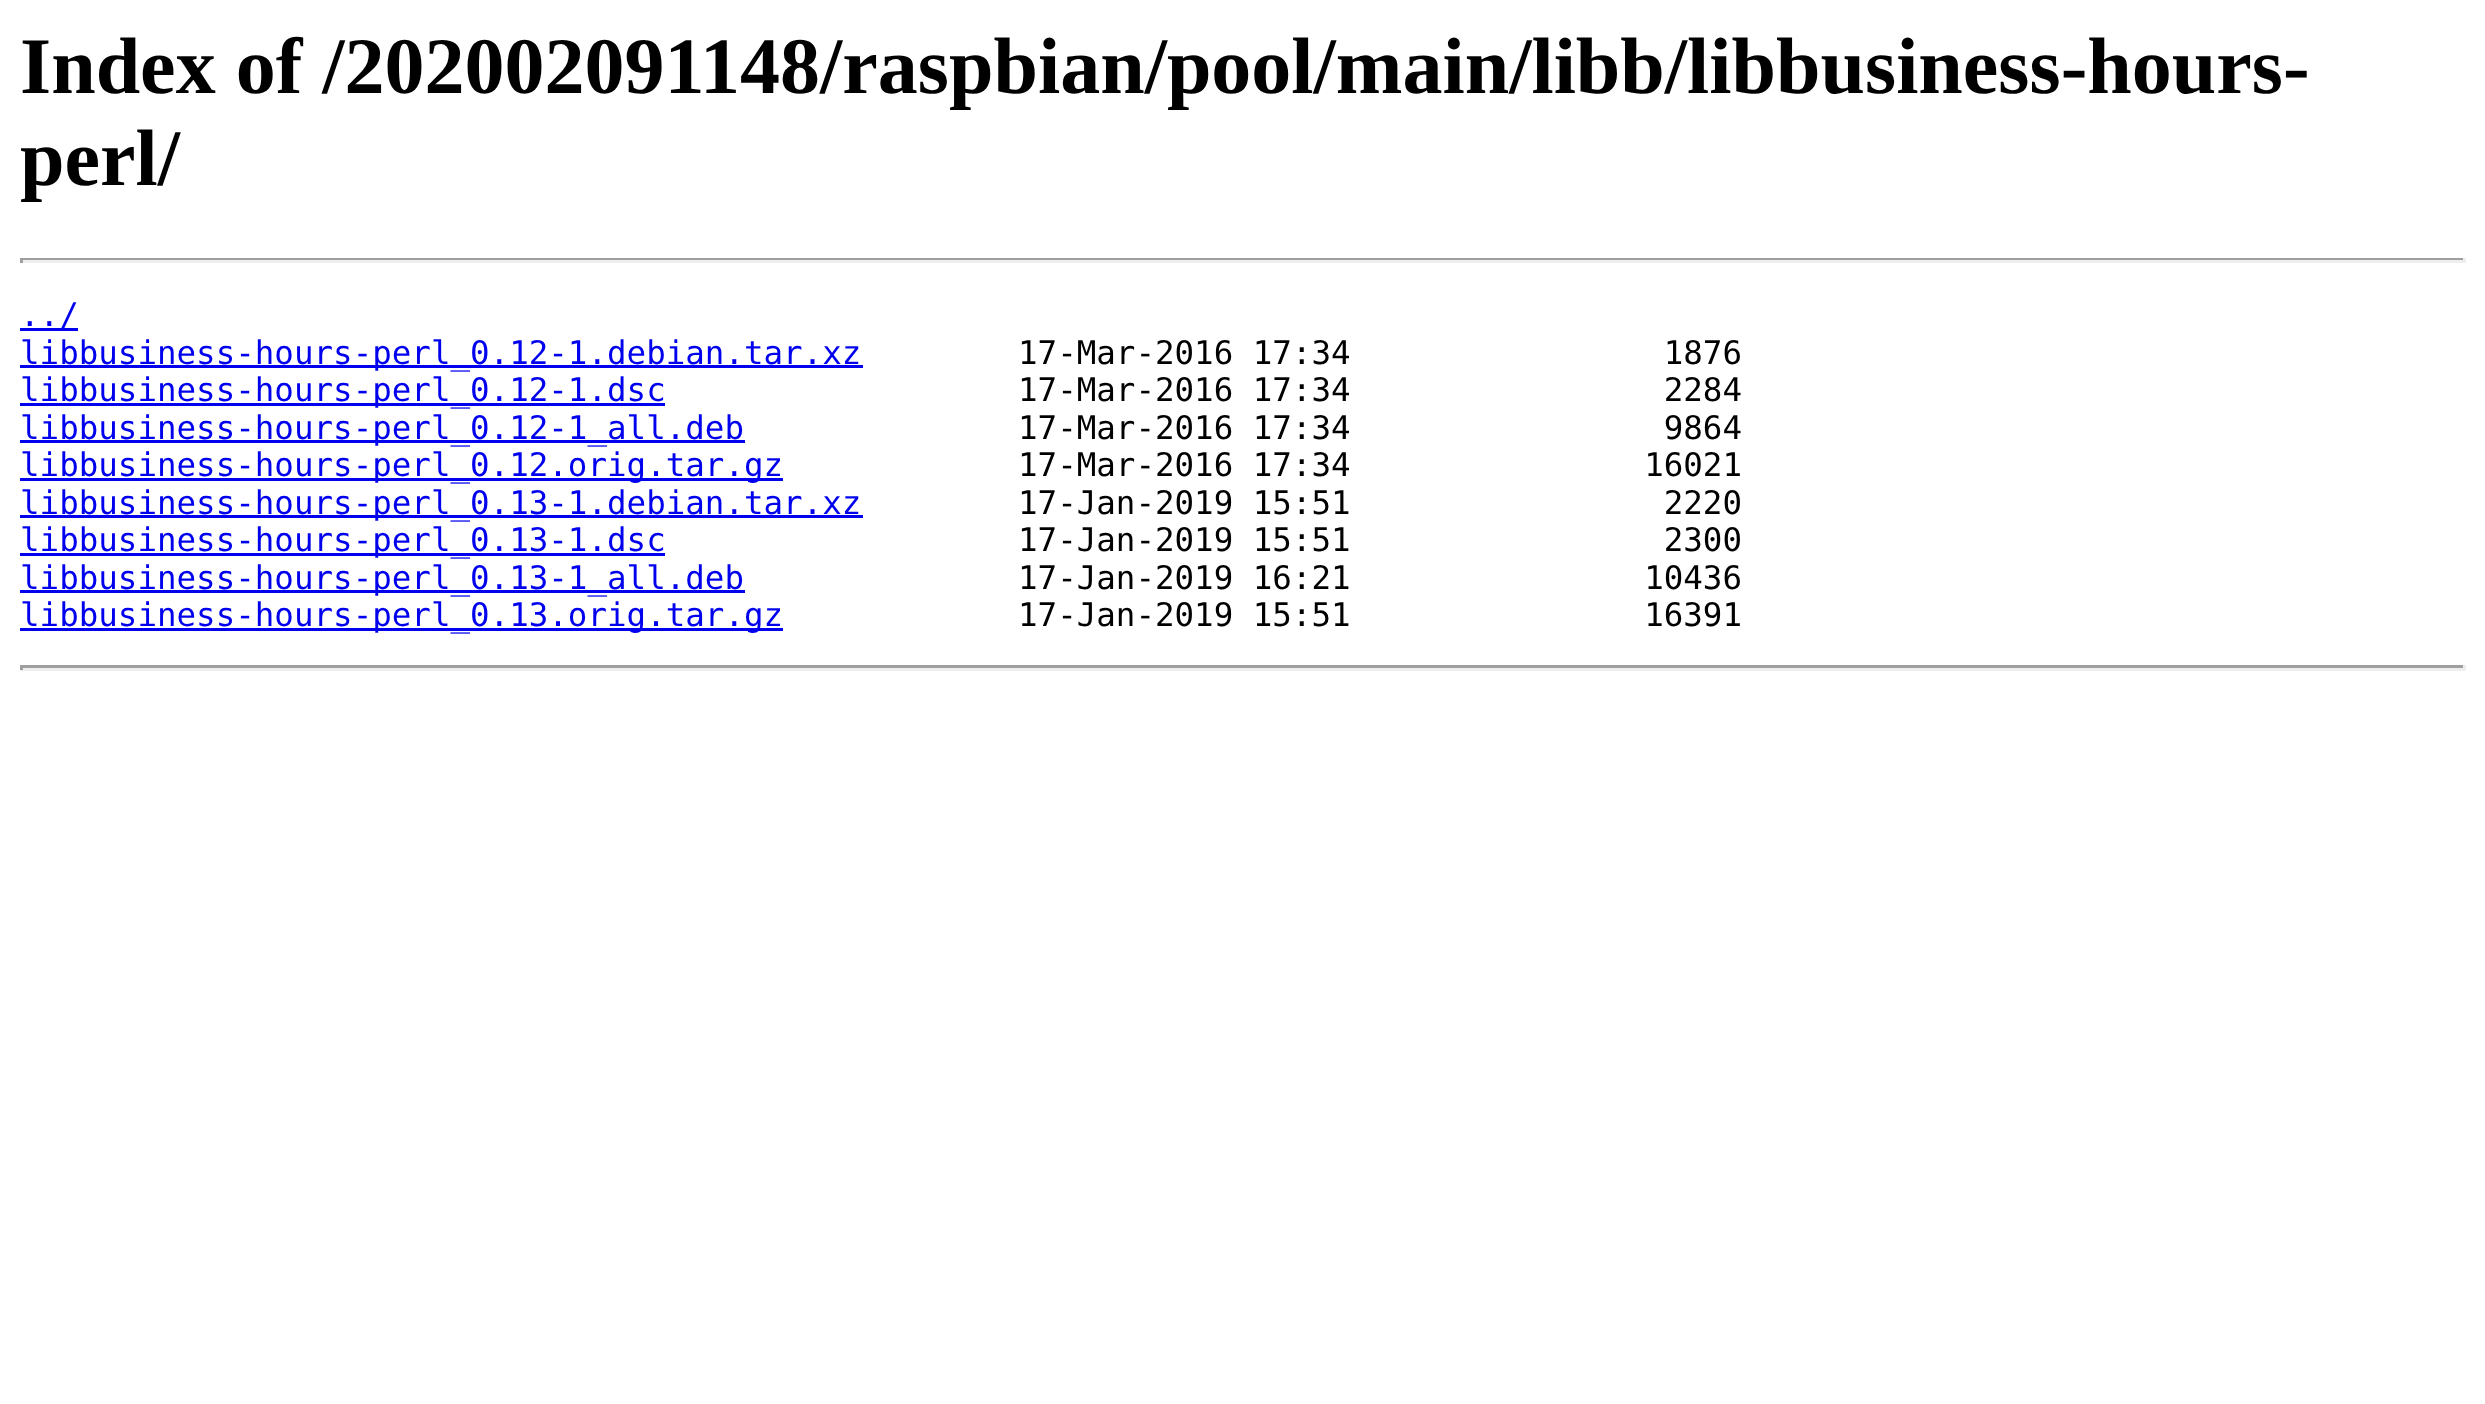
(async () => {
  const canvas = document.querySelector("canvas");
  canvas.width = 2485;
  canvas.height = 1404;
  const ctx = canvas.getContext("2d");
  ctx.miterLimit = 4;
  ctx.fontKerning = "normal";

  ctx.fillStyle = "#ffffff";
  ctx.fillRect(0, 0, 2485, 1404);
  for (const [x, y, w, h, color] of [
    [20, 258, 2445, 2, "#9f9f9f"],
    [2463, 258, 3, 5, "#eeeeee"],
    [20, 260, 2445, 3, "#eeeeee"],
    [20, 258, 3, 5, "#9f9f9f"],
    [20, 328, 58, 3, "#0000ee"],
    [20, 365, 843, 3, "#0000ee"],
    [20, 403, 645, 3, "#0000ee"],
    [20, 440, 725, 3, "#0000ee"],
    [20, 478, 763, 3, "#0000ee"],
    [20, 515, 843, 3, "#0000ee"],
    [20, 553, 645, 3, "#0000ee"],
    [20, 590, 725, 3, "#0000ee"],
    [20, 628, 763, 3, "#0000ee"],
    [20, 665, 2445, 3, "#9f9f9f"],
    [2463, 665, 3, 5, "#eeeeee"],
    [20, 668, 2445, 3, "#eeeeee"],
    [20, 665, 3, 5, "#9f9f9f"],
  ]) {
    ctx.fillStyle = color;
    ctx.fillRect(x, y, w, h);
  }
  ctx.font = "bold 80px Liberation Serif";
  ctx.fillStyle = "#000000";
  ctx.fillText("Index of /202002091148/raspbian/pool/main/libb/libbusiness-hours-", 20, 93);
  ctx.fillText("perl/", 20, 185);
  ctx.font = "32.5px DejaVu Sans Mono";
  ctx.fillStyle = "#0000ee";
  ctx.fillText("../", 20, 326);
  ctx.fillText("libbusiness-hours-perl_0.12-1.debian.tar.xz", 20, 364);
  ctx.fillStyle = "#000000";
  ctx.fillText("17-Mar-2016 17:34                1876", 1018, 364);
  ctx.fillStyle = "#0000ee";
  ctx.fillText("libbusiness-hours-perl_0.12-1.dsc", 20, 401);
  ctx.fillStyle = "#000000";
  ctx.fillText("17-Mar-2016 17:34                2284", 1018, 401);
  ctx.fillStyle = "#0000ee";
  ctx.fillText("libbusiness-hours-perl_0.12-1_all.deb", 20, 439);
  ctx.fillStyle = "#000000";
  ctx.fillText("17-Mar-2016 17:34                9864", 1018, 439);
  ctx.fillStyle = "#0000ee";
  ctx.fillText("libbusiness-hours-perl_0.12.orig.tar.gz", 20, 476);
  ctx.fillStyle = "#000000";
  ctx.fillText("17-Mar-2016 17:34               16021", 1018, 476);
  ctx.fillStyle = "#0000ee";
  ctx.fillText("libbusiness-hours-perl_0.13-1.debian.tar.xz", 20, 514);
  ctx.fillStyle = "#000000";
  ctx.fillText("17-Jan-2019 15:51                2220", 1018, 514);
  ctx.fillStyle = "#0000ee";
  ctx.fillText("libbusiness-hours-perl_0.13-1.dsc", 20, 551);
  ctx.fillStyle = "#000000";
  ctx.fillText("17-Jan-2019 15:51                2300", 1018, 551);
  ctx.fillStyle = "#0000ee";
  ctx.fillText("libbusiness-hours-perl_0.13-1_all.deb", 20, 589);
  ctx.fillStyle = "#000000";
  ctx.fillText("17-Jan-2019 16:21               10436", 1018, 589);
  ctx.fillStyle = "#0000ee";
  ctx.fillText("libbusiness-hours-perl_0.13.orig.tar.gz", 20, 626);
  ctx.fillStyle = "#000000";
  ctx.fillText("17-Jan-2019 15:51               16391", 1018, 626);
})();
